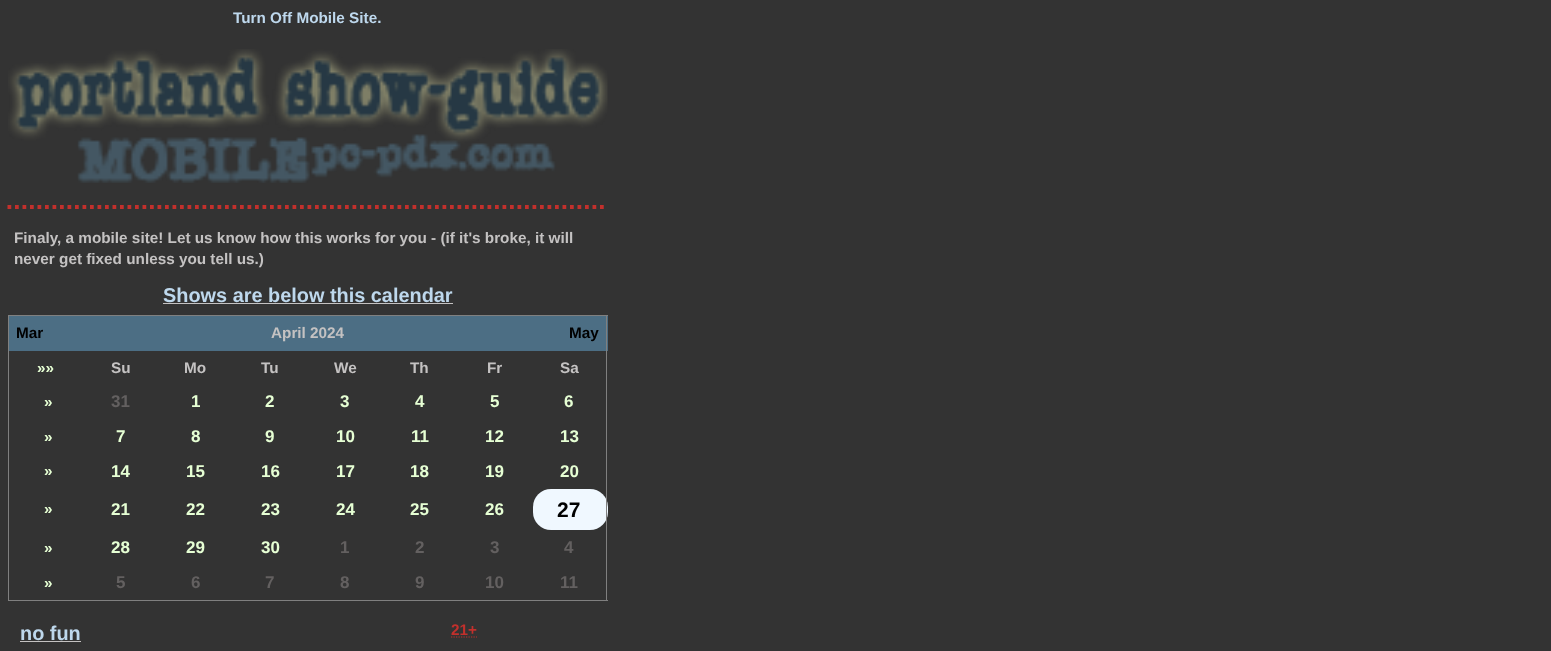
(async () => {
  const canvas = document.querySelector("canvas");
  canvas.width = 1551;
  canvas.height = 651;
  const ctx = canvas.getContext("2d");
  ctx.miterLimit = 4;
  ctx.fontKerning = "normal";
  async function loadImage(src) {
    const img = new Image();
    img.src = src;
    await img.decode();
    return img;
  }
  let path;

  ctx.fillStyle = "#333333";
  ctx.fillRect(0, 0, 1551, 651);
  ctx.drawImage(await loadImage("img/1.png"), 8, 49, 600, 134);
  path = new Path2D("M7.5 207H607.5");
  ctx.strokeStyle = "#c2302c";
  ctx.lineWidth = 3.8;
  ctx.setLineDash([3.75, 3.75]);
  ctx.stroke(path);
  for (const [x, y, w, h, color] of [
    [163, 303, 290, 1, "#c4c2c2"],
    [8, 315, 600, 1, "#808080"],
    [9, 316, 599, 35, "#4c6e84"],
  ]) {
    ctx.fillStyle = color;
    ctx.fillRect(x, y, w, h);
  }
  ctx.fillStyle = "#f0f8ff";
  ctx.beginPath();
  ctx.roundRect(533, 489, 75, 41, 18);
  ctx.fill();
  for (const [x, y, w, h, color] of [
    [606, 315, 1, 286, "#808080"],
    [8, 600, 600, 1, "#808080"],
    [8, 315, 1, 286, "#808080"],
    [20, 641, 61, 1, "#c4c2c2"],
  ]) {
    ctx.fillStyle = color;
    ctx.fillRect(x, y, w, h);
  }
  path = new Path2D("M451 637H477");
  ctx.lineWidth = 1.2;
  ctx.setLineDash([1.25, 1.25]);
  ctx.stroke(path);
  ctx.font = "bold 15.3px Liberation Sans";
  ctx.fillStyle = "#bed8ed";
  ctx.fillText("Turn Off Mobile Site.", 233, 23);
  ctx.fillStyle = "#c4c2c2";
  ctx.fillText("Finaly, a mobile site! Let us know how this works for you - (if it's broke, it will", 14, 243);
  ctx.fillText("never get fixed unless you tell us.)", 14, 264);
  ctx.font = "bold 19.9px Liberation Sans";
  ctx.fillStyle = "#bed8ed";
  ctx.fillText("Shows are below this calendar", 163, 302);
  ctx.font = "bold 15.3px Liberation Sans";
  ctx.fillStyle = "#000000";
  ctx.fillText("Mar", 16, 338);
  ctx.fillStyle = "#c4c2c2";
  ctx.fillText("April 2024", 271, 338);
  ctx.fillStyle = "#000000";
  ctx.fillText("May", 569, 338);
  ctx.fillStyle = "#e6ffd4";
  ctx.fillText("»»", 37, 373);
  ctx.fillStyle = "#c4c2c2";
  for (const [text, x, y] of [
    ["Su", 111, 373],
    ["Mo", 184, 373],
    ["Tu", 261, 373],
    ["We", 334, 373],
    ["Th", 410, 373],
    ["Fr", 487, 373],
    ["Sa", 560, 373],
  ]) {
    ctx.fillText(text, x, y);
  }
  ctx.fillStyle = "#e6ffd4";
  ctx.fillText("»", 44, 407);
  ctx.font = "bold 17px Liberation Sans";
  ctx.fillStyle = "#636060";
  ctx.fillText("31", 111, 407);
  ctx.fillStyle = "#e6ffd4";
  for (const [text, x, y] of [
    ["1", 191, 407],
    ["2", 265, 407],
    ["3", 340, 407],
    ["4", 415, 407],
    ["5", 490, 407],
    ["6", 564, 407],
  ]) {
    ctx.fillText(text, x, y);
  }
  ctx.font = "bold 15.3px Liberation Sans";
  ctx.fillText("»", 44, 442);
  ctx.font = "bold 17px Liberation Sans";
  for (const [text, x, y] of [
    ["7", 116, 442],
    ["8", 191, 442],
    ["9", 265, 442],
    ["10", 336, 442],
    ["11", 411, 442],
    ["12", 485, 442],
    ["13", 560, 442],
  ]) {
    ctx.fillText(text, x, y);
  }
  ctx.font = "bold 15.3px Liberation Sans";
  ctx.fillText("»", 44, 476);
  ctx.font = "bold 17px Liberation Sans";
  for (const [text, x, y] of [
    ["14", 111, 477],
    ["15", 186, 477],
    ["16", 261, 477],
    ["17", 336, 477],
    ["18", 410, 477],
    ["19", 485, 477],
    ["20", 560, 477],
  ]) {
    ctx.fillText(text, x, y);
  }
  ctx.font = "bold 15.3px Liberation Sans";
  ctx.fillText("»", 44, 514);
  ctx.font = "bold 17px Liberation Sans";
  for (const [text, x, y] of [
    ["21", 111, 515],
    ["22", 186, 515],
    ["23", 261, 515],
    ["24", 336, 515],
    ["25", 410, 515],
    ["26", 485, 515],
  ]) {
    ctx.fillText(text, x, y);
  }
  ctx.font = "bold 21px Liberation Sans";
  ctx.fillStyle = "#000000";
  ctx.fillText("27", 557, 517);
  ctx.font = "bold 15.3px Liberation Sans";
  ctx.fillStyle = "#e6ffd4";
  ctx.fillText("»", 44, 553);
  ctx.font = "bold 17px Liberation Sans";
  for (const [text, x, y] of [
    ["28", 111, 553],
    ["29", 186, 553],
    ["30", 261, 553],
  ]) {
    ctx.fillText(text, x, y);
  }
  ctx.fillStyle = "#636060";
  for (const [text, x, y] of [
    ["1", 340, 553],
    ["2", 415, 553],
    ["3", 490, 553],
    ["4", 564, 553],
  ]) {
    ctx.fillText(text, x, y);
  }
  ctx.font = "bold 15.3px Liberation Sans";
  ctx.fillStyle = "#e6ffd4";
  ctx.fillText("»", 44, 588);
  ctx.font = "bold 17px Liberation Sans";
  ctx.fillStyle = "#636060";
  for (const [text, x, y] of [
    ["5", 116, 588],
    ["6", 191, 588],
    ["7", 265, 588],
    ["8", 340, 588],
    ["9", 415, 588],
    ["10", 485, 588],
    ["11", 560, 588],
  ]) {
    ctx.fillText(text, x, y);
  }
  ctx.font = "bold 19.9px Liberation Sans";
  ctx.fillStyle = "#bed8ed";
  ctx.fillText("no fun", 20, 640);
  ctx.font = "bold 15.3px Liberation Sans";
  ctx.fillStyle = "#c2302c";
  ctx.fillText("21+", 451, 635);
})();
